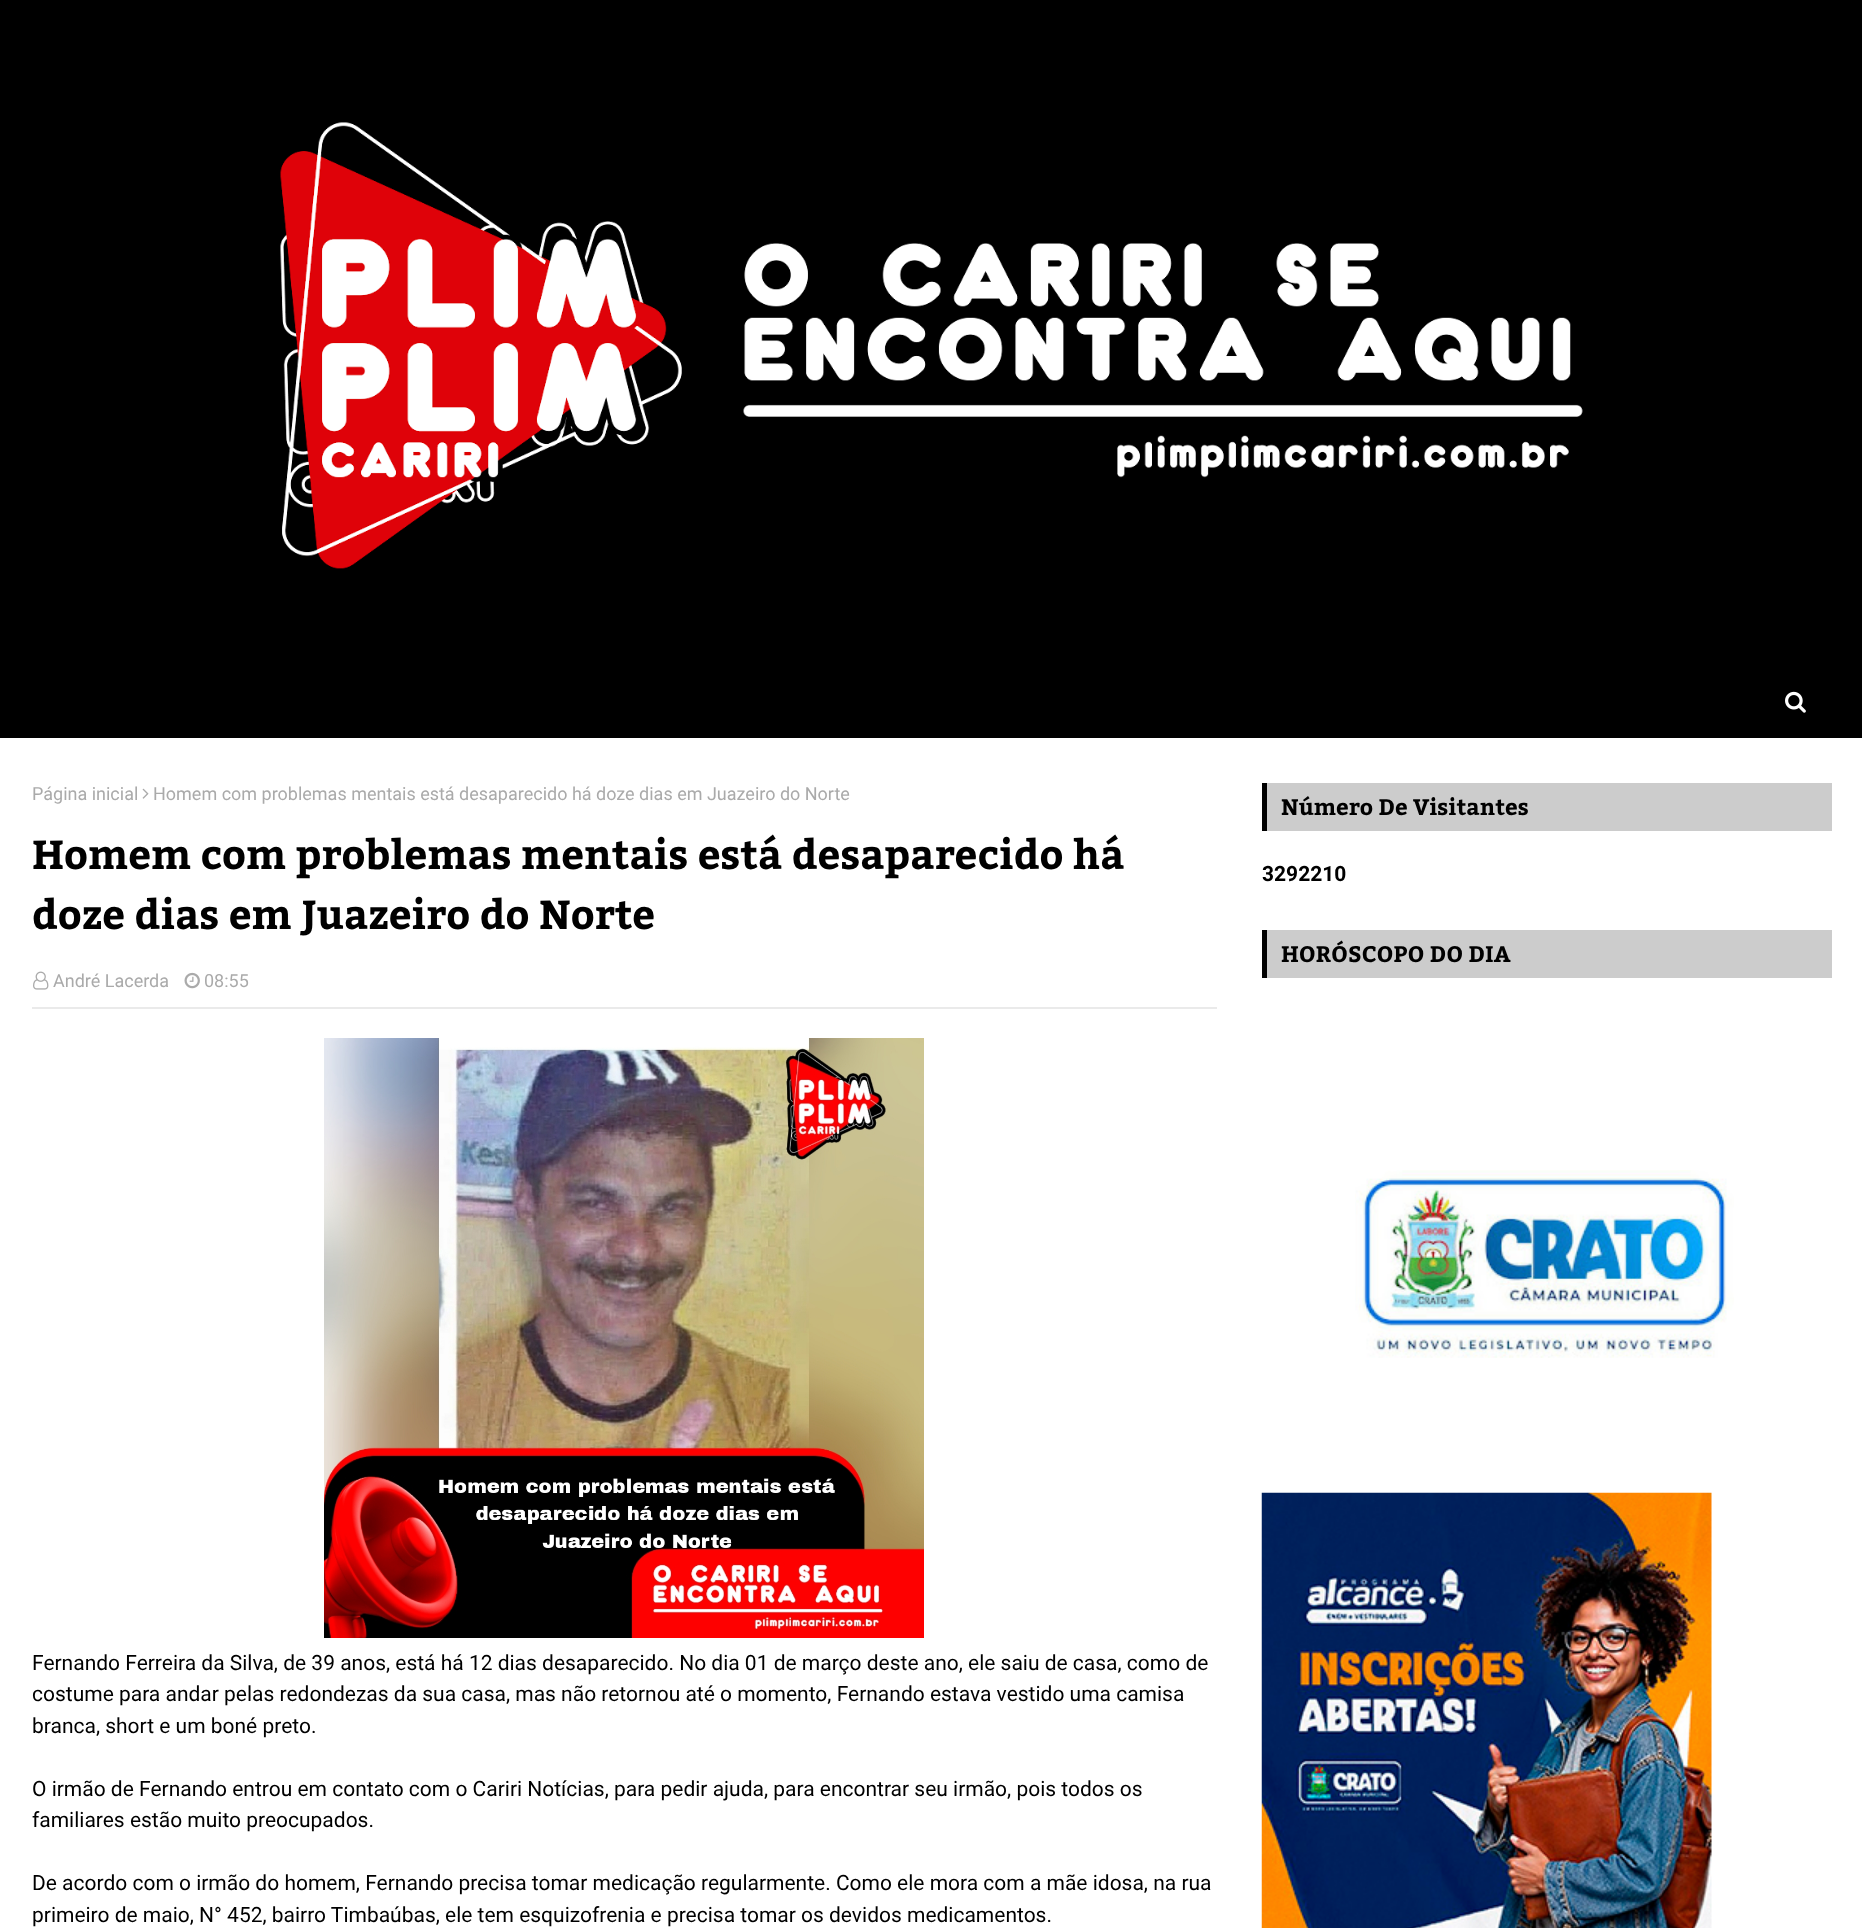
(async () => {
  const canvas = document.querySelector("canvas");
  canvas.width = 1862;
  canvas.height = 1928;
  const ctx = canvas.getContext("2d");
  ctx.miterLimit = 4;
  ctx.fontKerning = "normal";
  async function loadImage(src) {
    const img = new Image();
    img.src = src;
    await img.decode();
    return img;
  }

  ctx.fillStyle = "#ffffff";
  ctx.fillRect(0, 0, 1862, 1928);
  ctx.fillStyle = "#000000";
  ctx.fillRect(0, 0, 1862, 738);
  ctx.drawImage(await loadImage("img/1.png"), 280, 122, 1303, 447);
  ctx.drawImage(await loadImage("img/2.png"), 1785, 691, 21, 22);
  ctx.drawImage(await loadImage("img/3.png"), 142, 788, 7, 11);
  ctx.fillStyle = "#eaeaea";
  ctx.fillRect(32, 1007, 1185, 2);
  ctx.drawImage(await loadImage("img/4.png"), 33, 971, 16, 19);
  ctx.drawImage(await loadImage("img/5.png"), 184, 972, 16, 17);
  ctx.drawImage(await loadImage("img/6.png"), 324, 1038, 600, 600);
  for (const [x, y, w, h, color] of [
    [1267, 783, 565, 48, "#cccccc"],
    [1262, 783, 5, 48, "#000000"],
    [1267, 930, 565, 48, "#cccccc"],
    [1262, 930, 5, 48, "#000000"],
  ]) {
    ctx.fillStyle = color;
    ctx.fillRect(x, y, w, h);
  }
  ctx.drawImage(await loadImage("img/7.png"), 1355, 1170, 379, 188);
  ctx.drawImage(await loadImage("img/8.png"), 1261, 1492, 451, 436);
  ctx.font = "18px Roboto";
  ctx.fillStyle = "#aaaaaa";
  ctx.fillText("Página inicial", 32, 800);
  ctx.fillText("Homem com problemas mentais está desaparecido há doze dias em Juazeiro do Norte", 153, 800);
  ctx.font = "bold 40.5px Kadwa";
  ctx.fillStyle = "#000000";
  ctx.fillText("Homem com problemas mentais está desaparecido há", 32, 869);
  ctx.fillText("doze dias em Juazeiro do Norte", 32, 929);
  ctx.font = "18px Roboto";
  ctx.fillStyle = "#aaaaaa";
  ctx.fillText("André Lacerda", 53, 987);
  ctx.fillText("08:55", 204, 987);
  ctx.font = "21px Roboto";
  ctx.fillStyle = "#000000";
  for (const [text, x, y] of [
    ["Fernando Ferreira da Silva, de 39 anos, está há 12 dias desaparecido. No dia 01 de março deste ano, ele saiu de casa, como de", 32, 1670],
    ["costume para andar pelas redondezas da sua casa, mas não retornou até o momento, Fernando estava vestido uma camisa", 32, 1701],
    ["branca, short e um boné preto.", 32, 1733],
    ["O irmão de Fernando entrou em contato com o Cariri Notícias, para pedir ajuda, para encontrar seu irmão, pois todos os", 32, 1796],
    ["familiares estão muito preocupados.", 32, 1827],
    ["De acordo com o irmão do homem, Fernando precisa tomar medicação regularmente. Como ele mora com a mãe idosa, na rua", 32, 1890],
    ["primeiro de maio, N° 452, bairro Timbaúbas, ele tem esquizofrenia e precisa tomar os devidos medicamentos.", 32, 1922],
  ]) {
    ctx.fillText(text, x, y);
  }
  ctx.font = "bold 22.5px Kadwa";
  ctx.fillText("Número De Visitantes", 1281, 815);
  ctx.font = "bold 21px Roboto";
  ctx.fillText("3292210", 1262, 881);
  ctx.font = "bold 22.5px Kadwa";
  ctx.fillText("HORÓSCOPO DO DIA", 1281, 962);
})();
